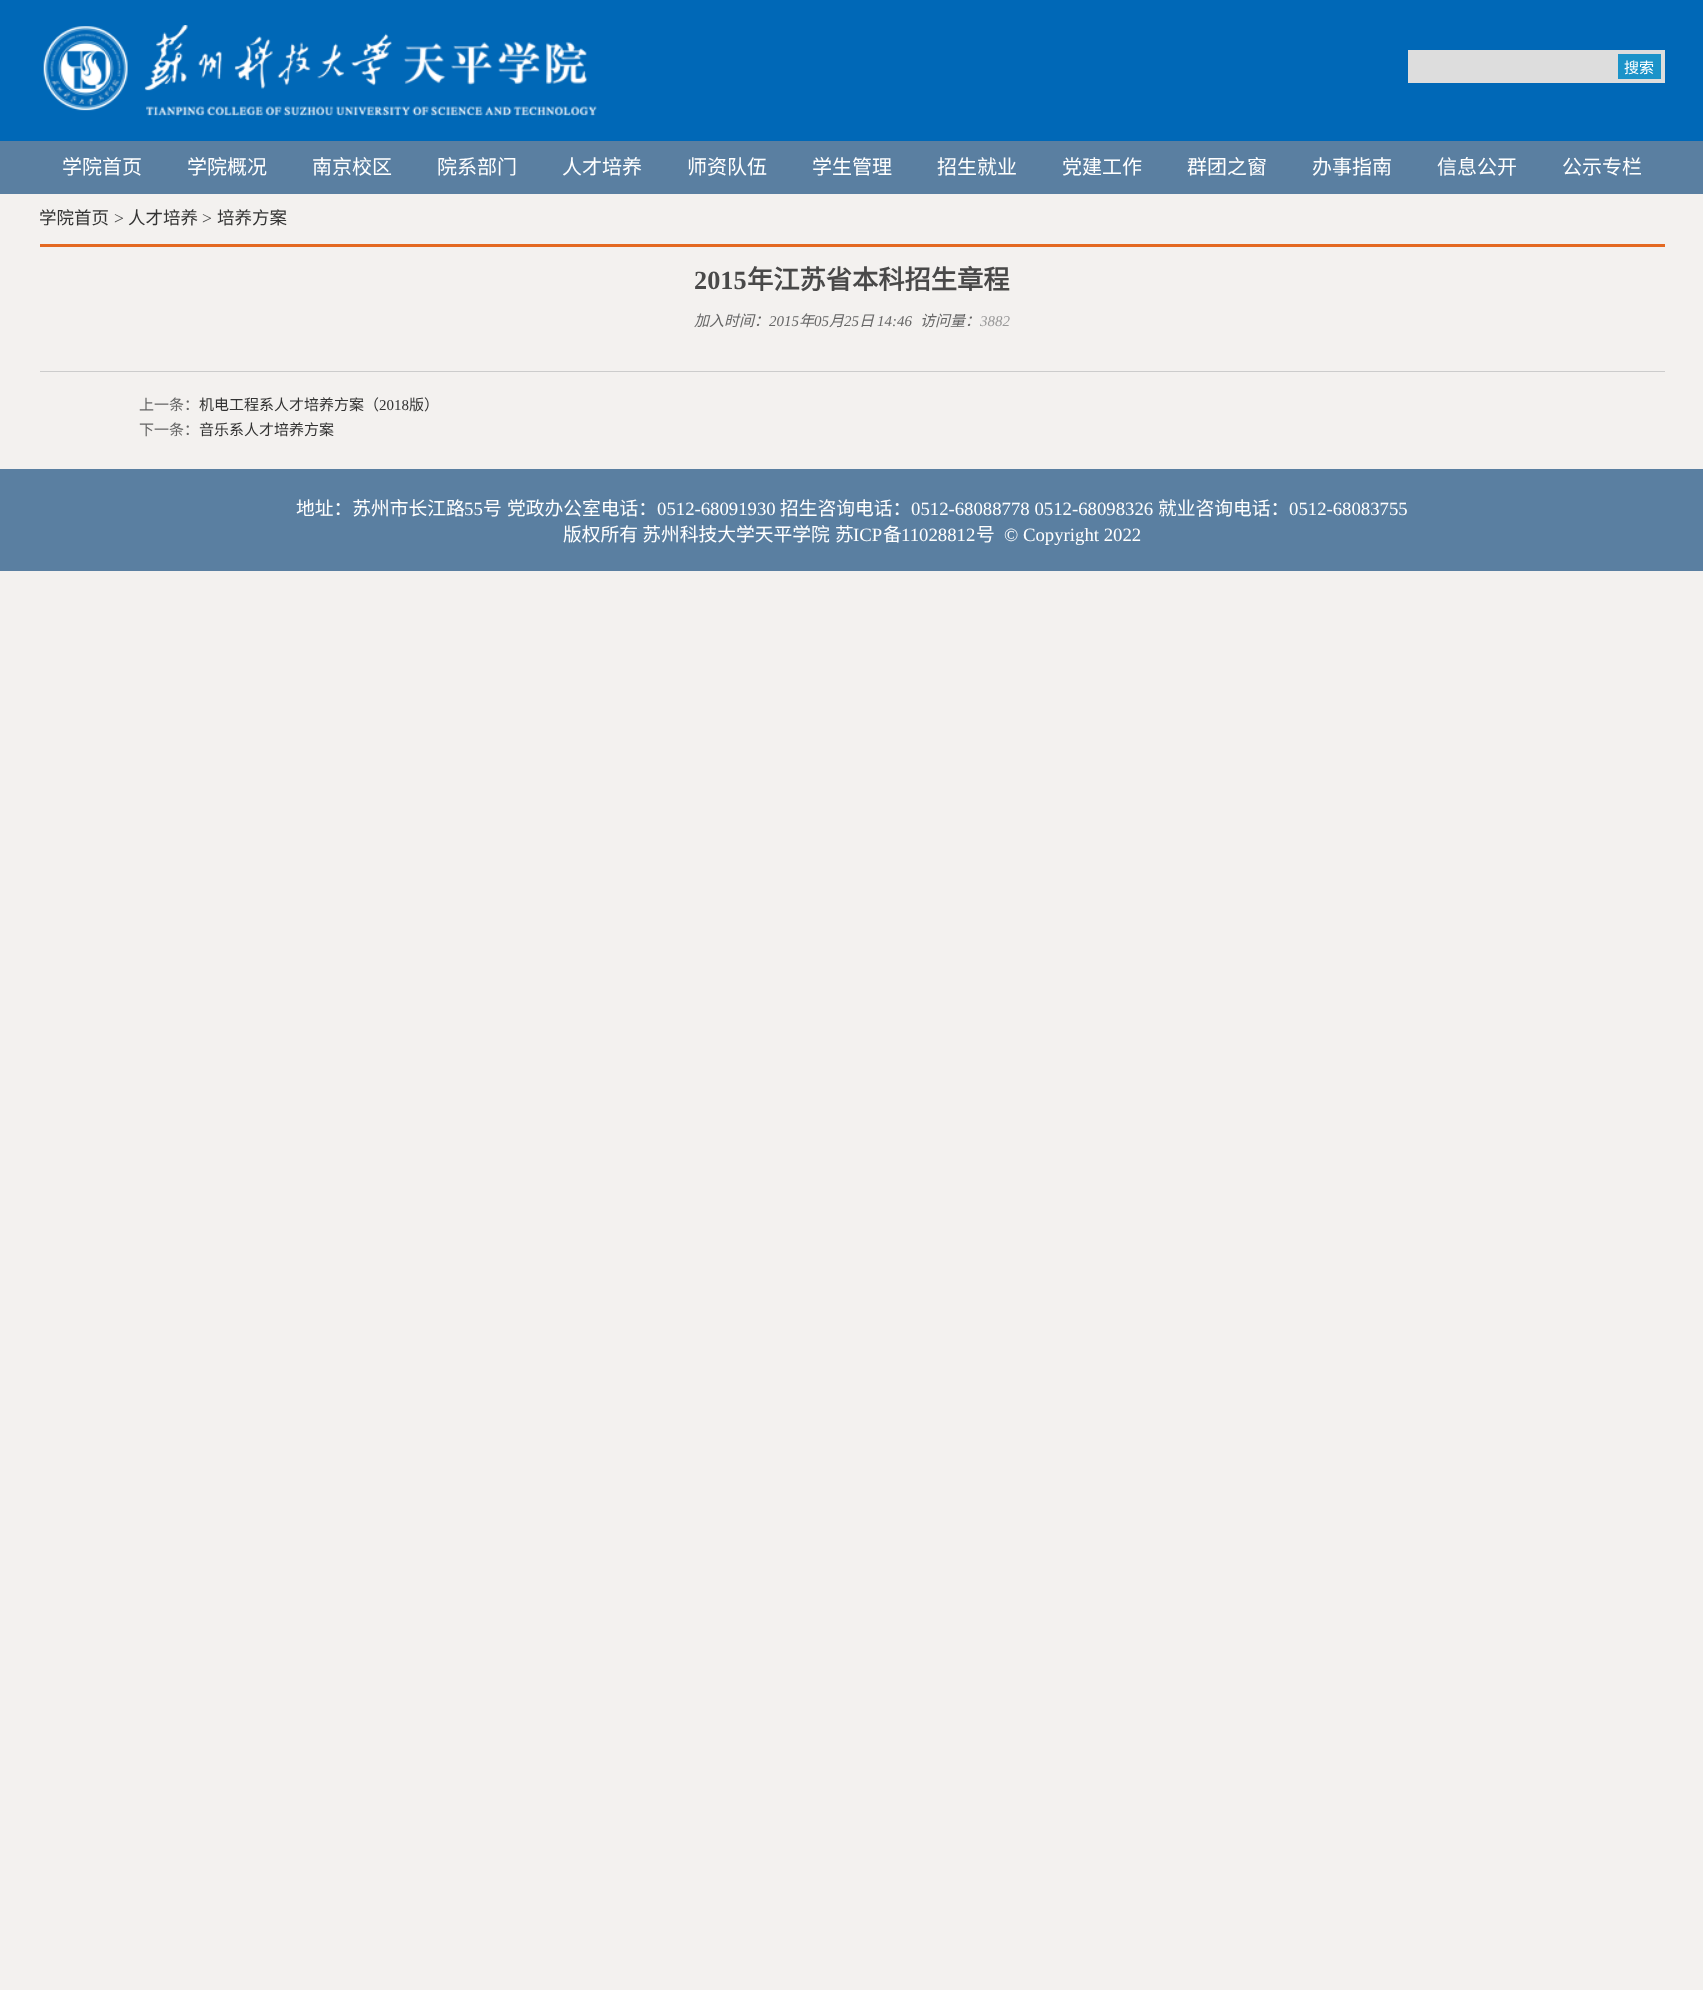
(async () => {
  const canvas = document.querySelector("canvas");
  canvas.width = 1703;
  canvas.height = 1990;
  const ctx = canvas.getContext("2d");
  ctx.miterLimit = 4;
  ctx.fontKerning = "normal";
  async function loadImage(src) {
    const img = new Image();
    img.src = src;
    await img.decode();
    return img;
  }

  ctx.fillStyle = "#f3f1ef";
  ctx.fillRect(0, 0, 1703, 1990);
  ctx.fillStyle = "#0068b7";
  ctx.fillRect(0, 0, 1703, 141);
  ctx.drawImage(await loadImage("img/1.png"), 43, 25, 554, 91);
  for (const [x, y, w, h, color] of [
    [1408, 50, 257, 33, "#dddddd"],
    [1618, 54, 43, 25, "#1b93c9"],
    [0, 141, 1703, 53, "#5a7fa1"],
    [40, 244, 1625, 3, "#e46921"],
    [40, 371, 1625, 1, "#cccccc"],
    [0, 469, 1703, 102, "#5a7fa1"],
  ]) {
    ctx.fillStyle = color;
    ctx.fillRect(x, y, w, h);
  }
  ctx.font = "15px Noto Sans CJK SC";
  ctx.fillStyle = "#ffffff";
  ctx.fillText("搜索", 1624, 73);
  ctx.font = "20px Noto Sans CJK SC";
  for (const [text, x, y] of [
    ["学院首页", 62, 174],
    ["学院概况", 187, 174],
    ["南京校区", 312, 174],
    ["院系部门", 437, 174],
    ["人才培养", 562, 174],
    ["师资队伍", 687, 174],
    ["学生管理", 812, 174],
    ["招生就业", 937, 174],
    ["党建工作", 1062, 174],
    ["群团之窗", 1187, 174],
    ["办事指南", 1312, 174],
    ["信息公开", 1437, 174],
    ["公示专栏", 1562, 174],
  ]) {
    ctx.fillText(text, x, y);
  }
  ctx.font = "17.5px Noto Sans CJK SC";
  ctx.fillStyle = "#333333";
  ctx.fillText("学院首页", 39, 224);
  ctx.font = "17.5px Liberation Serif";
  ctx.fillStyle = "#494949";
  ctx.fillText(">", 114, 224);
  ctx.font = "17.5px Noto Sans CJK SC";
  ctx.fillStyle = "#333333";
  ctx.fillText("人才培养", 128, 224);
  ctx.font = "17.5px Liberation Serif";
  ctx.fillStyle = "#494949";
  ctx.fillText(">", 202, 224);
  ctx.font = "17.5px Noto Sans CJK SC";
  ctx.fillStyle = "#333333";
  ctx.fillText("培养方案", 217, 224);
  ctx.font = "bold 26.25px Liberation Serif";
  ctx.fillStyle = "#494949";
  ctx.fillText("2015", 694, 289);
  ctx.font = "bold 26.25px Noto Sans CJK SC";
  ctx.fillText("年江苏省本科招生章程", 747, 289);
  ctx.font = "italic 15px Noto Sans CJK SC";
  ctx.fillStyle = "#666666";
  ctx.fillText("加入时间：", 694, 326);
  ctx.font = "italic 15px Liberation Serif";
  ctx.fillText("2015", 769, 326);
  ctx.font = "italic 15px Noto Sans CJK SC";
  ctx.fillText("年", 799, 326);
  ctx.font = "italic 15px Liberation Serif";
  ctx.fillText("05", 814, 326);
  ctx.font = "italic 15px Noto Sans CJK SC";
  ctx.fillText("月", 829, 326);
  ctx.font = "italic 15px Liberation Serif";
  ctx.fillText("25", 844, 326);
  ctx.font = "italic 15px Noto Sans CJK SC";
  ctx.fillText("日", 859, 326);
  ctx.font = "italic 15px Liberation Serif";
  ctx.fillText("14:46", 877, 326);
  ctx.font = "italic 15px Noto Sans CJK SC";
  ctx.fillText("访问量：", 920, 326);
  ctx.font = "italic 15px Liberation Serif";
  ctx.fillStyle = "#999999";
  ctx.fillText("3882", 980, 326);
  ctx.font = "15px Noto Sans CJK SC";
  ctx.fillStyle = "#666666";
  ctx.fillText("上一条：", 139, 410);
  ctx.fillStyle = "#333333";
  ctx.fillText("机电工程系人才培养方案（", 199, 410);
  ctx.font = "15px Liberation Serif";
  ctx.fillText("2018", 379, 410);
  ctx.font = "15px Noto Sans CJK SC";
  ctx.fillText("版）", 409, 410);
  ctx.fillStyle = "#666666";
  ctx.fillText("下一条：", 139, 435);
  ctx.fillStyle = "#333333";
  ctx.fillText("音乐系人才培养方案", 199, 435);
  ctx.font = "18.75px Noto Sans CJK SC";
  ctx.fillStyle = "#ffffff";
  ctx.fillText("地址：苏州市长江路", 296, 515);
  ctx.font = "18.75px Liberation Serif";
  ctx.fillText("55", 464, 515);
  ctx.font = "18.75px Noto Sans CJK SC";
  ctx.fillText("号", 483, 515);
  ctx.fillText("党政办公室电话：", 507, 515);
  ctx.font = "18.75px Liberation Serif";
  ctx.fillText("0512-68091930", 657, 515);
  ctx.font = "18.75px Noto Sans CJK SC";
  ctx.fillText("招生咨询电话：", 780, 515);
  ctx.font = "18.75px Liberation Serif";
  ctx.fillText("0512-68088778 0512-68098326", 911, 515);
  ctx.font = "18.75px Noto Sans CJK SC";
  ctx.fillText("就业咨询电话：", 1158, 515);
  ctx.font = "18.75px Liberation Serif";
  ctx.fillText("0512-68083755", 1289, 515);
  ctx.font = "18.75px Noto Sans CJK SC";
  ctx.fillText("版权所有 苏州科技大学天平学院", 563, 541);
  ctx.fillText("苏", 835, 541);
  ctx.font = "18.75px Liberation Serif";
  ctx.fillText("ICP", 853, 541);
  ctx.font = "18.75px Noto Sans CJK SC";
  ctx.fillText("备", 883, 541);
  ctx.font = "18.75px Liberation Serif";
  ctx.fillText("11028812", 901, 541);
  ctx.font = "18.75px Noto Sans CJK SC";
  ctx.fillText("号", 976, 541);
  ctx.font = "18.75px Liberation Serif";
  ctx.fillText("© Copyright 2022", 1004, 541);
})();
